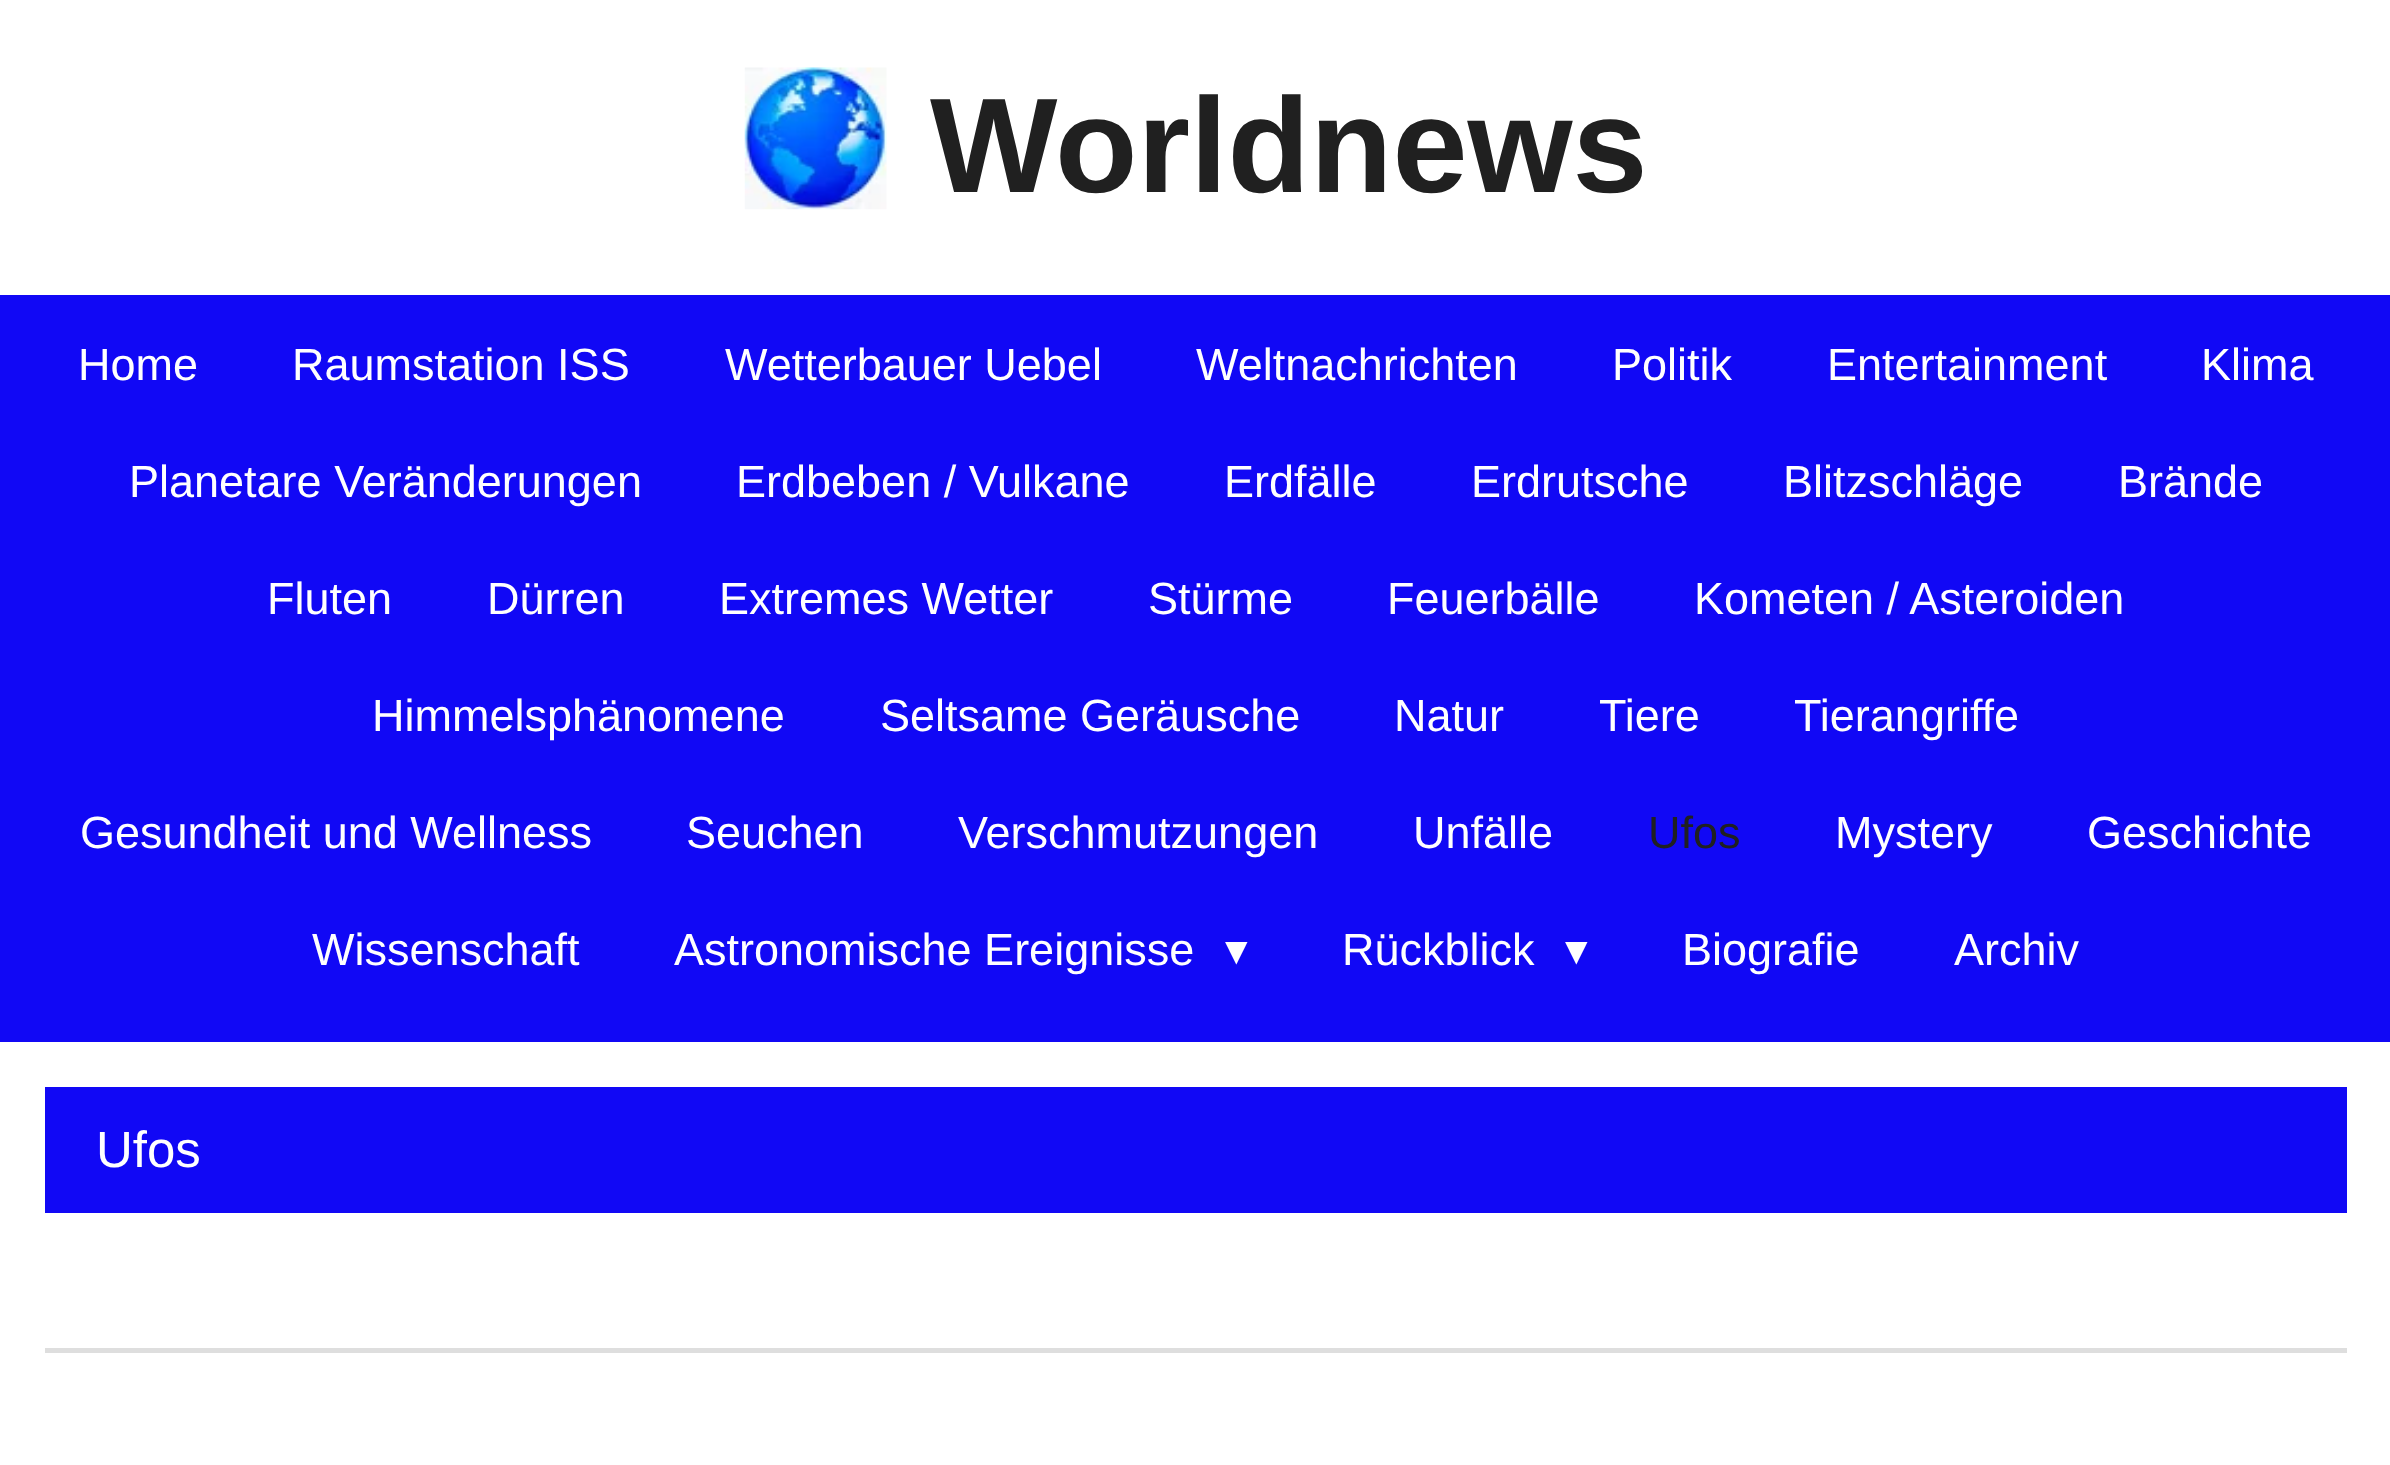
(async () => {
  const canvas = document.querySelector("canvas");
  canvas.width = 2390;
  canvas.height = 1465;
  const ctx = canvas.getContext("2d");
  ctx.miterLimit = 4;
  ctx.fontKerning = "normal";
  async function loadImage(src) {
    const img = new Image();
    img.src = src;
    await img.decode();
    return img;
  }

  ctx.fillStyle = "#ffffff";
  ctx.fillRect(0, 0, 2390, 1465);
  ctx.drawImage(await loadImage("img/1.png"), 744, 67, 143, 143);
  for (const [x, y, w, h, color] of [
    [0, 295, 2390, 747, "#1108f5"],
    [45, 1087, 2302, 126, "#1108f5"],
    [45, 1348, 2302, 5, "#dedede"],
  ]) {
    ctx.fillStyle = color;
    ctx.fillRect(x, y, w, h);
  }
  ctx.font = "bold 135px Liberation Sans";
  ctx.fillStyle = "#202020";
  ctx.fillText("Worldnews", 930, 192);
  ctx.font = "45px Liberation Sans";
  ctx.fillStyle = "#ffffff";
  for (const [text, x, y] of [
    ["Home", 78, 380],
    ["Raumstation ISS", 292, 380],
    ["Wetterbauer Uebel", 725, 380],
    ["Weltnachrichten", 1196, 380],
    ["Politik", 1612, 380],
    ["Entertainment", 1827, 380],
    ["Klima", 2201, 380],
    ["Planetare Veränderungen", 129, 497],
    ["Erdbeben / Vulkane", 736, 497],
    ["Erdfälle", 1224, 497],
    ["Erdrutsche", 1471, 497],
    ["Blitzschläge", 1783, 497],
    ["Brände", 2118, 497],
    ["Fluten", 267, 614],
    ["Dürren", 487, 614],
    ["Extremes Wetter", 719, 614],
    ["Stürme", 1148, 614],
    ["Feuerbälle", 1387, 614],
    ["Kometen / Asteroiden", 1694, 614],
    ["Himmelsphänomene", 372, 731],
    ["Seltsame Geräusche", 880, 731],
    ["Natur", 1394, 731],
    ["Tiere", 1599, 731],
    ["Tierangriffe", 1794, 731],
    ["Gesundheit und Wellness", 80, 848],
    ["Seuchen", 686, 848],
    ["Verschmutzungen", 958, 848],
    ["Unfälle", 1413, 848],
  ]) {
    ctx.fillText(text, x, y);
  }
  ctx.fillStyle = "#202020";
  ctx.fillText("Ufos", 1648, 848);
  ctx.fillStyle = "#ffffff";
  for (const [text, x, y] of [
    ["Mystery", 1835, 848],
    ["Geschichte", 2087, 848],
    ["Wissenschaft", 312, 965],
    ["Astronomische Ereignisse", 674, 965],
  ]) {
    ctx.fillText(text, x, y);
  }
  ctx.font = "45px DejaVu Sans";
  ctx.fillText("▾", 1225, 965);
  ctx.font = "45px Liberation Sans";
  ctx.fillText("Rückblick", 1342, 965);
  ctx.font = "45px DejaVu Sans";
  ctx.fillText("▾", 1565, 965);
  ctx.font = "45px Liberation Sans";
  ctx.fillText("Biografie", 1682, 965);
  ctx.fillText("Archiv", 1954, 965);
  ctx.font = "51px Liberation Sans";
  ctx.fillText("Ufos", 96, 1167);
})();
